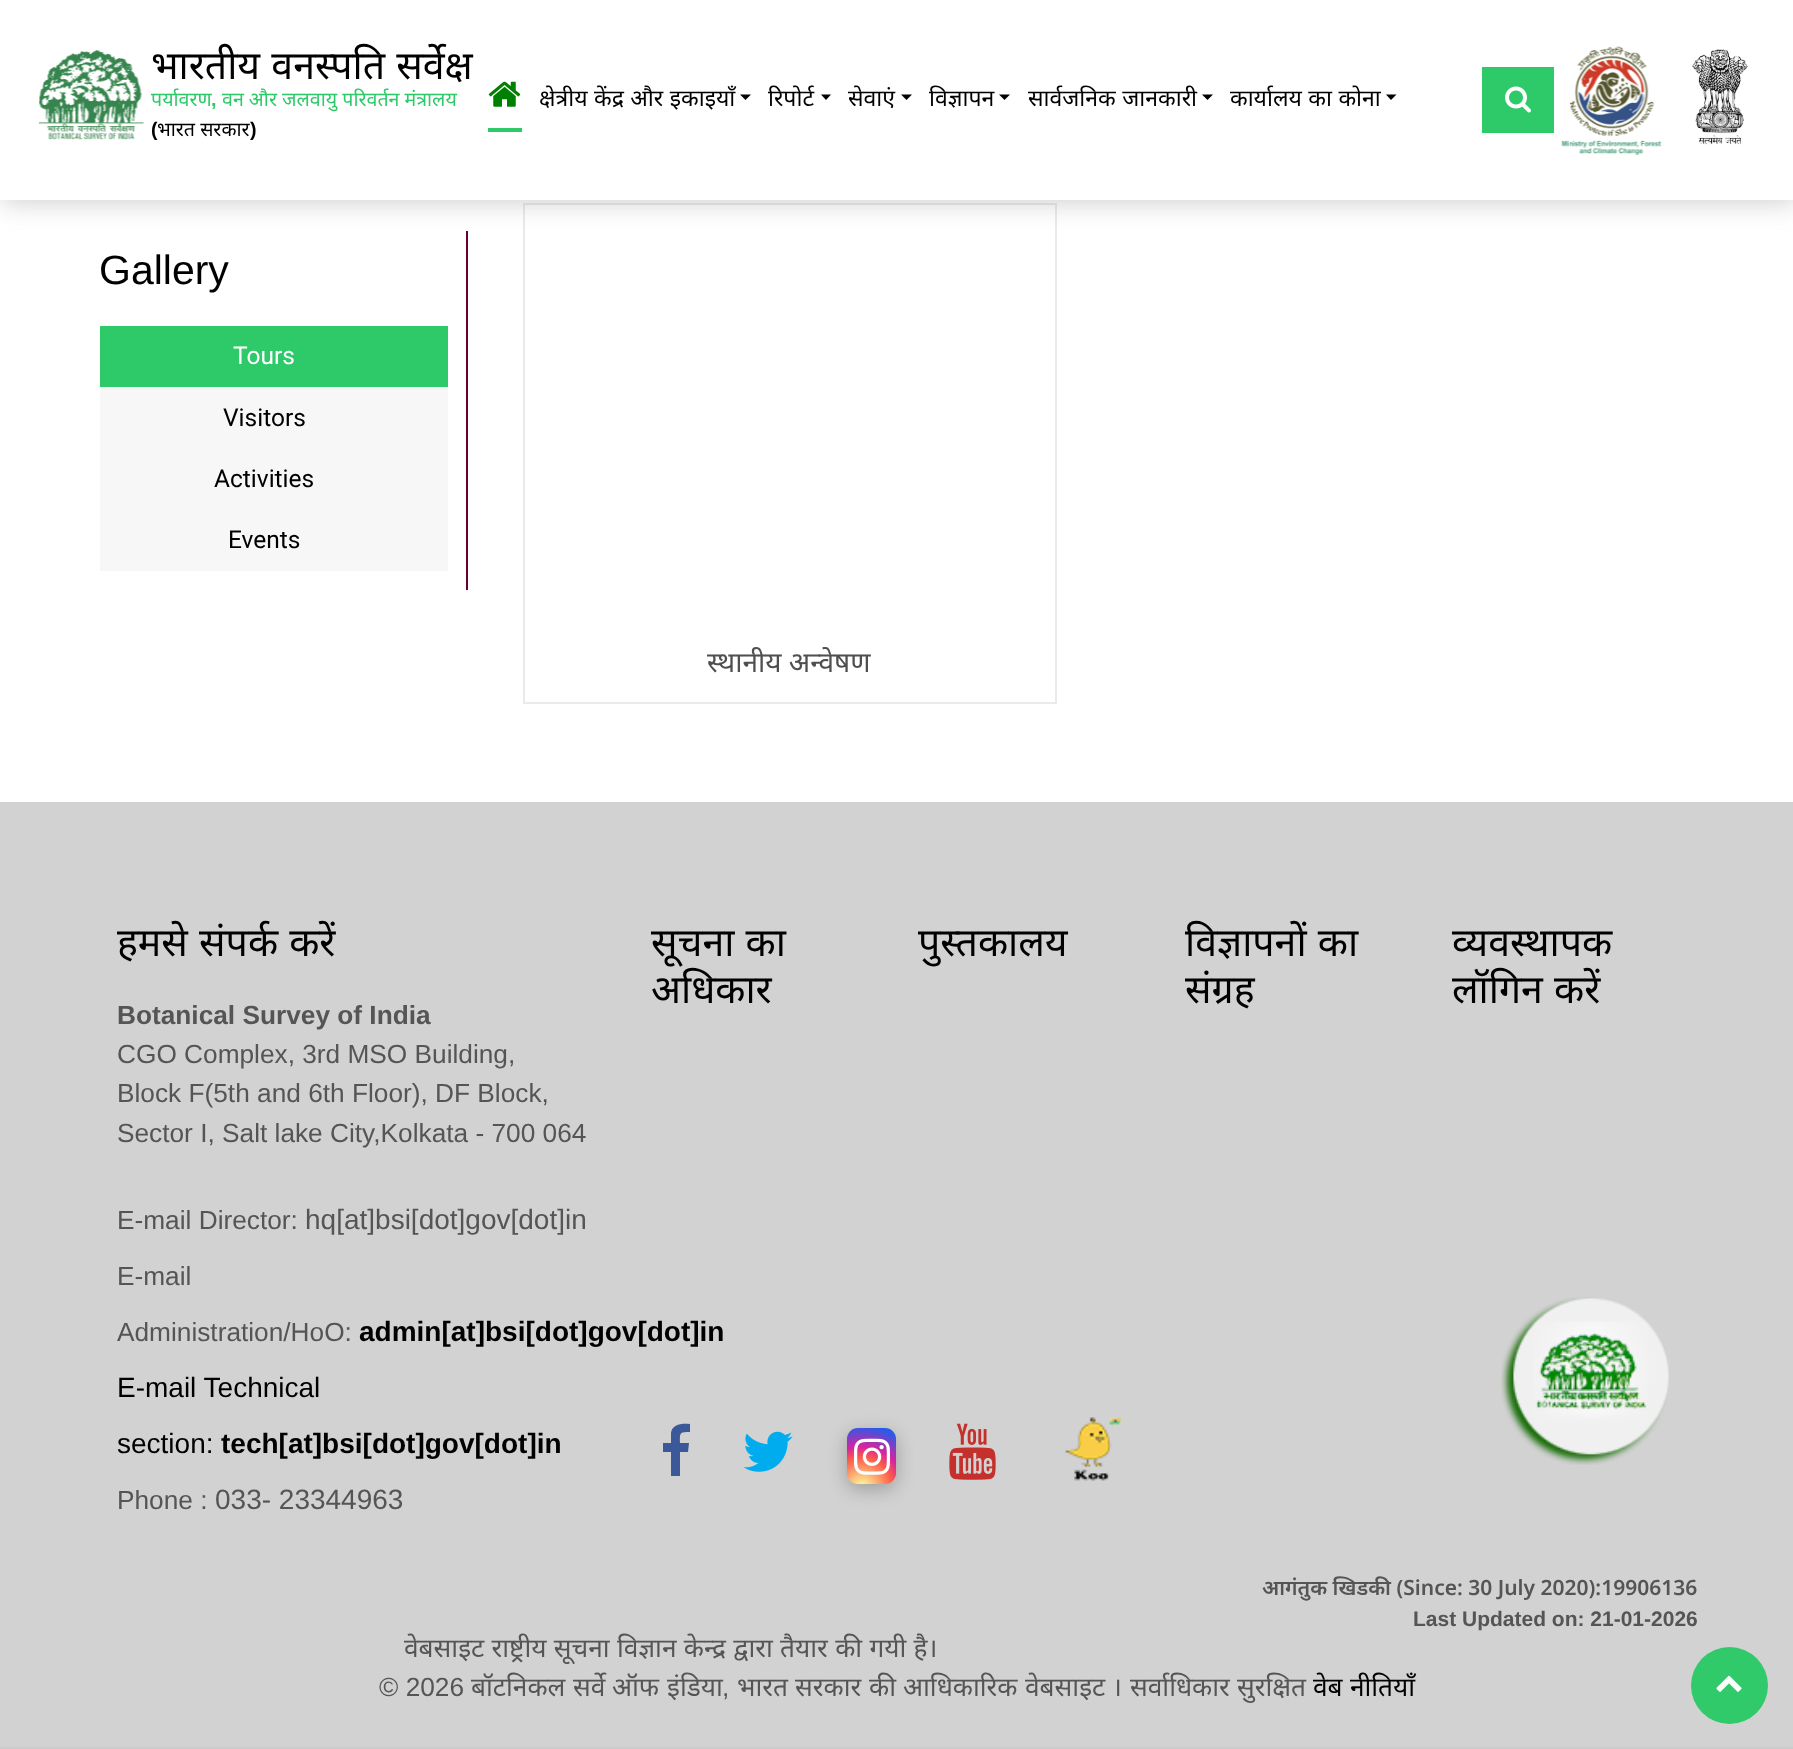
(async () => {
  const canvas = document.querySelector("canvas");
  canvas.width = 1793;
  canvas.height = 1749;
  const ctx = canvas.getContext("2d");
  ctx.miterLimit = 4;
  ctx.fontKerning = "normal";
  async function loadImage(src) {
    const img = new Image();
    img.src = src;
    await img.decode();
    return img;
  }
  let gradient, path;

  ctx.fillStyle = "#ffffff";
  ctx.fillRect(0, 0, 1793, 1749);
  ctx.fillStyle = "#660033";
  ctx.fillRect(466, 231, 2, 359);
  ctx.strokeStyle = "#eaeaea";
  ctx.lineWidth = 2;
  ctx.strokeRect(524, 204, 532, 499);
  ctx.fillStyle = "rgba(100, 100, 100, 0.3)";
  ctx.filter = "blur(13px)";
  ctx.beginPath();
  ctx.rect(2, 4, 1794, 199);
  ctx.fill();
  ctx.filter = "none";
  ctx.fillStyle = "#ffffff";
  ctx.fillRect(0, 0, 1793, 200);
  ctx.drawImage(await loadImage("img/1.png"), 39, 49, 105, 91);
  ctx.drawImage(await loadImage("img/2.png"), 488, 81, 33, 26);
  ctx.fillStyle = "#2eca6a";
  ctx.fillRect(488, 128, 34, 4);
  ctx.fillStyle = "#000000";
  path = new Path2D("M740 94.5H751L745.5 100Z");
  ctx.fill(path);
  path = new Path2D("M821 94.5H831L826 100Z");
  ctx.fill(path);
  path = new Path2D("M901 94.5H912L906.5 100Z");
  ctx.fill(path);
  path = new Path2D("M999 94.5H1010L1004.5 100Z");
  ctx.fill(path);
  path = new Path2D("M1202 94.5H1213L1207.5 100Z");
  ctx.fill(path);
  path = new Path2D("M1386 94.5H1396.5L1391 100Z");
  ctx.fill(path);
  ctx.fillStyle = "#2eca6a";
  ctx.fillRect(1482, 67, 72, 66);
  ctx.drawImage(await loadImage("img/3.png"), 1505, 86, 26, 27);
  ctx.drawImage(await loadImage("img/4.png"), 1561, 46, 101, 109);
  ctx.drawImage(await loadImage("img/5.png"), 1692, 49, 56, 96);
  for (const [x, y, w, h, color] of [
    [100, 326, 348, 61, "#2eca6a"],
    [100, 387, 348, 184, "#f7f7f7"],
    [0, 802, 1793, 945, "#d2d2d2"],
  ]) {
    ctx.fillStyle = color;
    ctx.fillRect(x, y, w, h);
  }
  ctx.drawImage(await loadImage("img/6.png"), 1501, 1297, 168, 168);
  ctx.fillStyle = "#cccccc";
  ctx.fillRect(0, 1747, 1793, 2);
  ctx.fillStyle = "#3b5998";
  path = new Path2D("M690 1424C682 1423 672 1424 671 1433V1443H663V1452H671V1476H680V1452H688L689 1443H680C680 1433 679 1432 690 1432Z");
  ctx.fill(path);
  ctx.drawImage(await loadImage("img/7.png"), 743, 1431, 50, 41);
  ctx.fillStyle = "rgba(0, 0, 0, 0.25)";
  ctx.filter = "blur(9px)";
  ctx.beginPath();
  ctx.roundRect(847, 1433, 49, 56, 11);
  ctx.fill();
  ctx.filter = "none";
  gradient = ctx.createRadialGradient(862, 1488, 0, 862, 1488, 69);
  gradient.addColorStop(0, "#fdf497");
  gradient.addColorStop(0.05, "#fdf497");
  gradient.addColorStop(0.45, "#fd5949");
  gradient.addColorStop(0.6, "#d6249f");
  gradient.addColorStop(0.9, "#285aeb");
  ctx.fillStyle = gradient;
  ctx.beginPath();
  ctx.roundRect(847, 1428, 49, 56, 11);
  ctx.fill();
  ctx.drawImage(await loadImage("img/8.png"), 854, 1438, 36, 37);
  ctx.drawImage(await loadImage("img/9.png"), 949, 1423, 47, 57);
  ctx.drawImage(await loadImage("img/10.png"), 1065, 1417, 58, 64);
  ctx.fillStyle = "#30ca6b";
  ctx.beginPath();
  ctx.arc(1729.5, 1685.5, 38.5, 0, Math.PI * 2);
  ctx.fill();
  ctx.drawImage(await loadImage("img/11.png"), 1716, 1675, 26, 17);
  ctx.wordSpacing = "1px";
  ctx.font = "39.25px Noto Sans";
  ctx.fillStyle = "#000000";
  ctx.fillText("भारतीय वनस्पति सर्वेक्ष", 151, 79);
  ctx.wordSpacing = "0px";
  ctx.font = "19.6px Noto Sans";
  ctx.fillStyle = "#2eca6a";
  ctx.fillText("पर्यावरण", 151, 106);
  ctx.font = "bold 19.6px Liberation Sans";
  ctx.fillText(",", 211, 106);
  ctx.font = "19.6px Noto Sans";
  ctx.fillText("वन और जलवायु परिवर्तन मंत्रालय", 222, 106);
  ctx.font = "bold 19.6px Liberation Sans";
  ctx.fillStyle = "#000000";
  ctx.fillText("(", 151, 136);
  ctx.font = "19.6px Noto Sans";
  ctx.fillText("भारत सरकार", 157, 136);
  ctx.font = "bold 19.6px Liberation Sans";
  ctx.fillText(")", 250, 136);
  ctx.wordSpacing = "0.5px";
  ctx.font = "23px Noto Sans";
  ctx.fillText("क्षेत्रीय केंद्र और इकाइयाँ", 539, 106);
  ctx.wordSpacing = "0px";
  for (const [text, x, y] of [
    ["रिपोर्ट", 768, 106],
    ["सेवाएं", 848, 106],
    ["विज्ञापन", 929, 106],
  ]) {
    ctx.fillText(text, x, y);
  }
  ctx.wordSpacing = "0.5px";
  ctx.fillText("सार्वजनिक जानकारी", 1028, 106);
  ctx.fillText("कार्यालय का कोना", 1230, 106);
  ctx.wordSpacing = "0px";
  ctx.font = "41px Liberation Sans";
  ctx.fillText("Gallery", 99, 284);
  ctx.font = "24.5px Roboto";
  ctx.fillStyle = "#ffffff";
  ctx.fillText("Tours", 233, 364);
  ctx.fillStyle = "#000000";
  for (const [text, x, y] of [
    ["Visitors", 223, 426],
    ["Activities", 214, 487],
    ["Events", 228, 548],
  ]) {
    ctx.fillText(text, x, y);
  }
  ctx.font = "28px Noto Sans";
  ctx.fillStyle = "#4f4f4f";
  ctx.fillText("स्थानीय अन्वेषण", 707, 672);
  ctx.wordSpacing = "1px";
  ctx.font = "39.25px Noto Sans";
  ctx.fillStyle = "#000000";
  ctx.fillText("हमसे संपर्क करें", 117, 956);
  ctx.wordSpacing = "0px";
  ctx.font = "bold 26.25px Liberation Sans";
  ctx.fillStyle = "#555555";
  ctx.fillText("Botanical Survey of India", 117, 1024);
  ctx.font = "26.25px Liberation Sans";
  for (const [text, x, y] of [
    ["CGO Complex, 3rd MSO Building,", 117, 1063],
    ["Block F(5th and 6th Floor), DF Block,", 117, 1102],
    ["Sector I, Salt lake City,Kolkata - 700 064", 117, 1142],
    ["E-mail Director:", 117, 1229],
  ]) {
    ctx.fillText(text, x, y);
  }
  ctx.font = "28px Liberation Sans";
  ctx.fillText("hq[at]bsi[dot]gov[dot]in", 305, 1229);
  ctx.font = "26.25px Liberation Sans";
  ctx.fillText("E-mail", 117, 1285);
  ctx.fillText("Administration/HoO:", 117, 1341);
  ctx.font = "bold 28px Liberation Sans";
  ctx.fillStyle = "#000000";
  ctx.fillText("admin[at]bsi[dot]gov[dot]in", 359, 1341);
  ctx.font = "28px Liberation Sans";
  ctx.fillText("E-mail Technical", 117, 1397);
  ctx.fillText("section:", 117, 1453);
  ctx.font = "bold 28px Liberation Sans";
  ctx.fillText("tech[at]bsi[dot]gov[dot]in", 221, 1453);
  ctx.font = "26.25px Liberation Sans";
  ctx.fillStyle = "#555555";
  ctx.fillText("Phone :", 117, 1509);
  ctx.font = "28px Liberation Sans";
  ctx.fillText("033- 23344963", 215, 1509);
  ctx.wordSpacing = "1px";
  ctx.font = "39.25px Noto Sans";
  ctx.fillStyle = "#000000";
  ctx.fillText("विज्ञापनों का", 1185, 956);
  ctx.wordSpacing = "0px";
  ctx.fillText("संग्रह", 1185, 1003);
  ctx.wordSpacing = "1px";
  ctx.fillText("सूचना का", 651, 956);
  ctx.wordSpacing = "0px";
  for (const [text, x, y] of [
    ["अधिकार", 651, 1003],
    ["पुस्तकालय", 918, 956],
    ["व्यवस्थापक", 1452, 956],
  ]) {
    ctx.fillText(text, x, y);
  }
  ctx.wordSpacing = "1px";
  ctx.fillText("लॉगिन करें", 1452, 1003);
  ctx.wordSpacing = "0px";
  ctx.font = "600 21px Noto Sans";
  ctx.fillStyle = "#555555";
  ctx.fillText("आगंतुक खिडकी (Since: 30 July 2020):19906136", 1262, 1595);
  ctx.font = "bold 21px Liberation Sans";
  ctx.fillText("Last Updated on: 21-01-2026", 1413, 1626);
  ctx.wordSpacing = "0.5px";
  ctx.font = "26.25px Noto Sans";
  ctx.fillText("वेबसाइट राष्ट्रीय सूचना विज्ञान केन्द्र द्वारा तैयार की गयी है।", 404, 1657);
  ctx.wordSpacing = "0px";
  ctx.font = "26.25px Liberation Sans";
  ctx.fillText("© 2026", 379, 1696);
  ctx.font = "26.25px Noto Sans";
  for (const [text, x, y] of [
    ["बॉटनिकल", 471, 1696],
    ["सर्वे", 573, 1696],
    ["ऑफ", 612, 1696],
    ["इंडिया", 667, 1696],
  ]) {
    ctx.fillText(text, x, y);
  }
  ctx.font = "26.25px Liberation Sans";
  ctx.fillText(",", 722, 1696);
  ctx.font = "26.25px Noto Sans";
  for (const [text, x, y] of [
    ["भारत", 737, 1696],
    ["सरकार", 795, 1696],
    ["की", 869, 1696],
    ["आधिकारिक", 903, 1696],
    ["वेबसाइट", 1025, 1696],
    ["।", 1112, 1696],
    ["सर्वाधिकार", 1130, 1696],
    ["सुरक्षित", 1237, 1696],
  ]) {
    ctx.fillText(text, x, y);
  }
  ctx.wordSpacing = "0.5px";
  ctx.fillStyle = "#000000";
  ctx.fillText("वेब नीतियाँ", 1313, 1696);
})();
